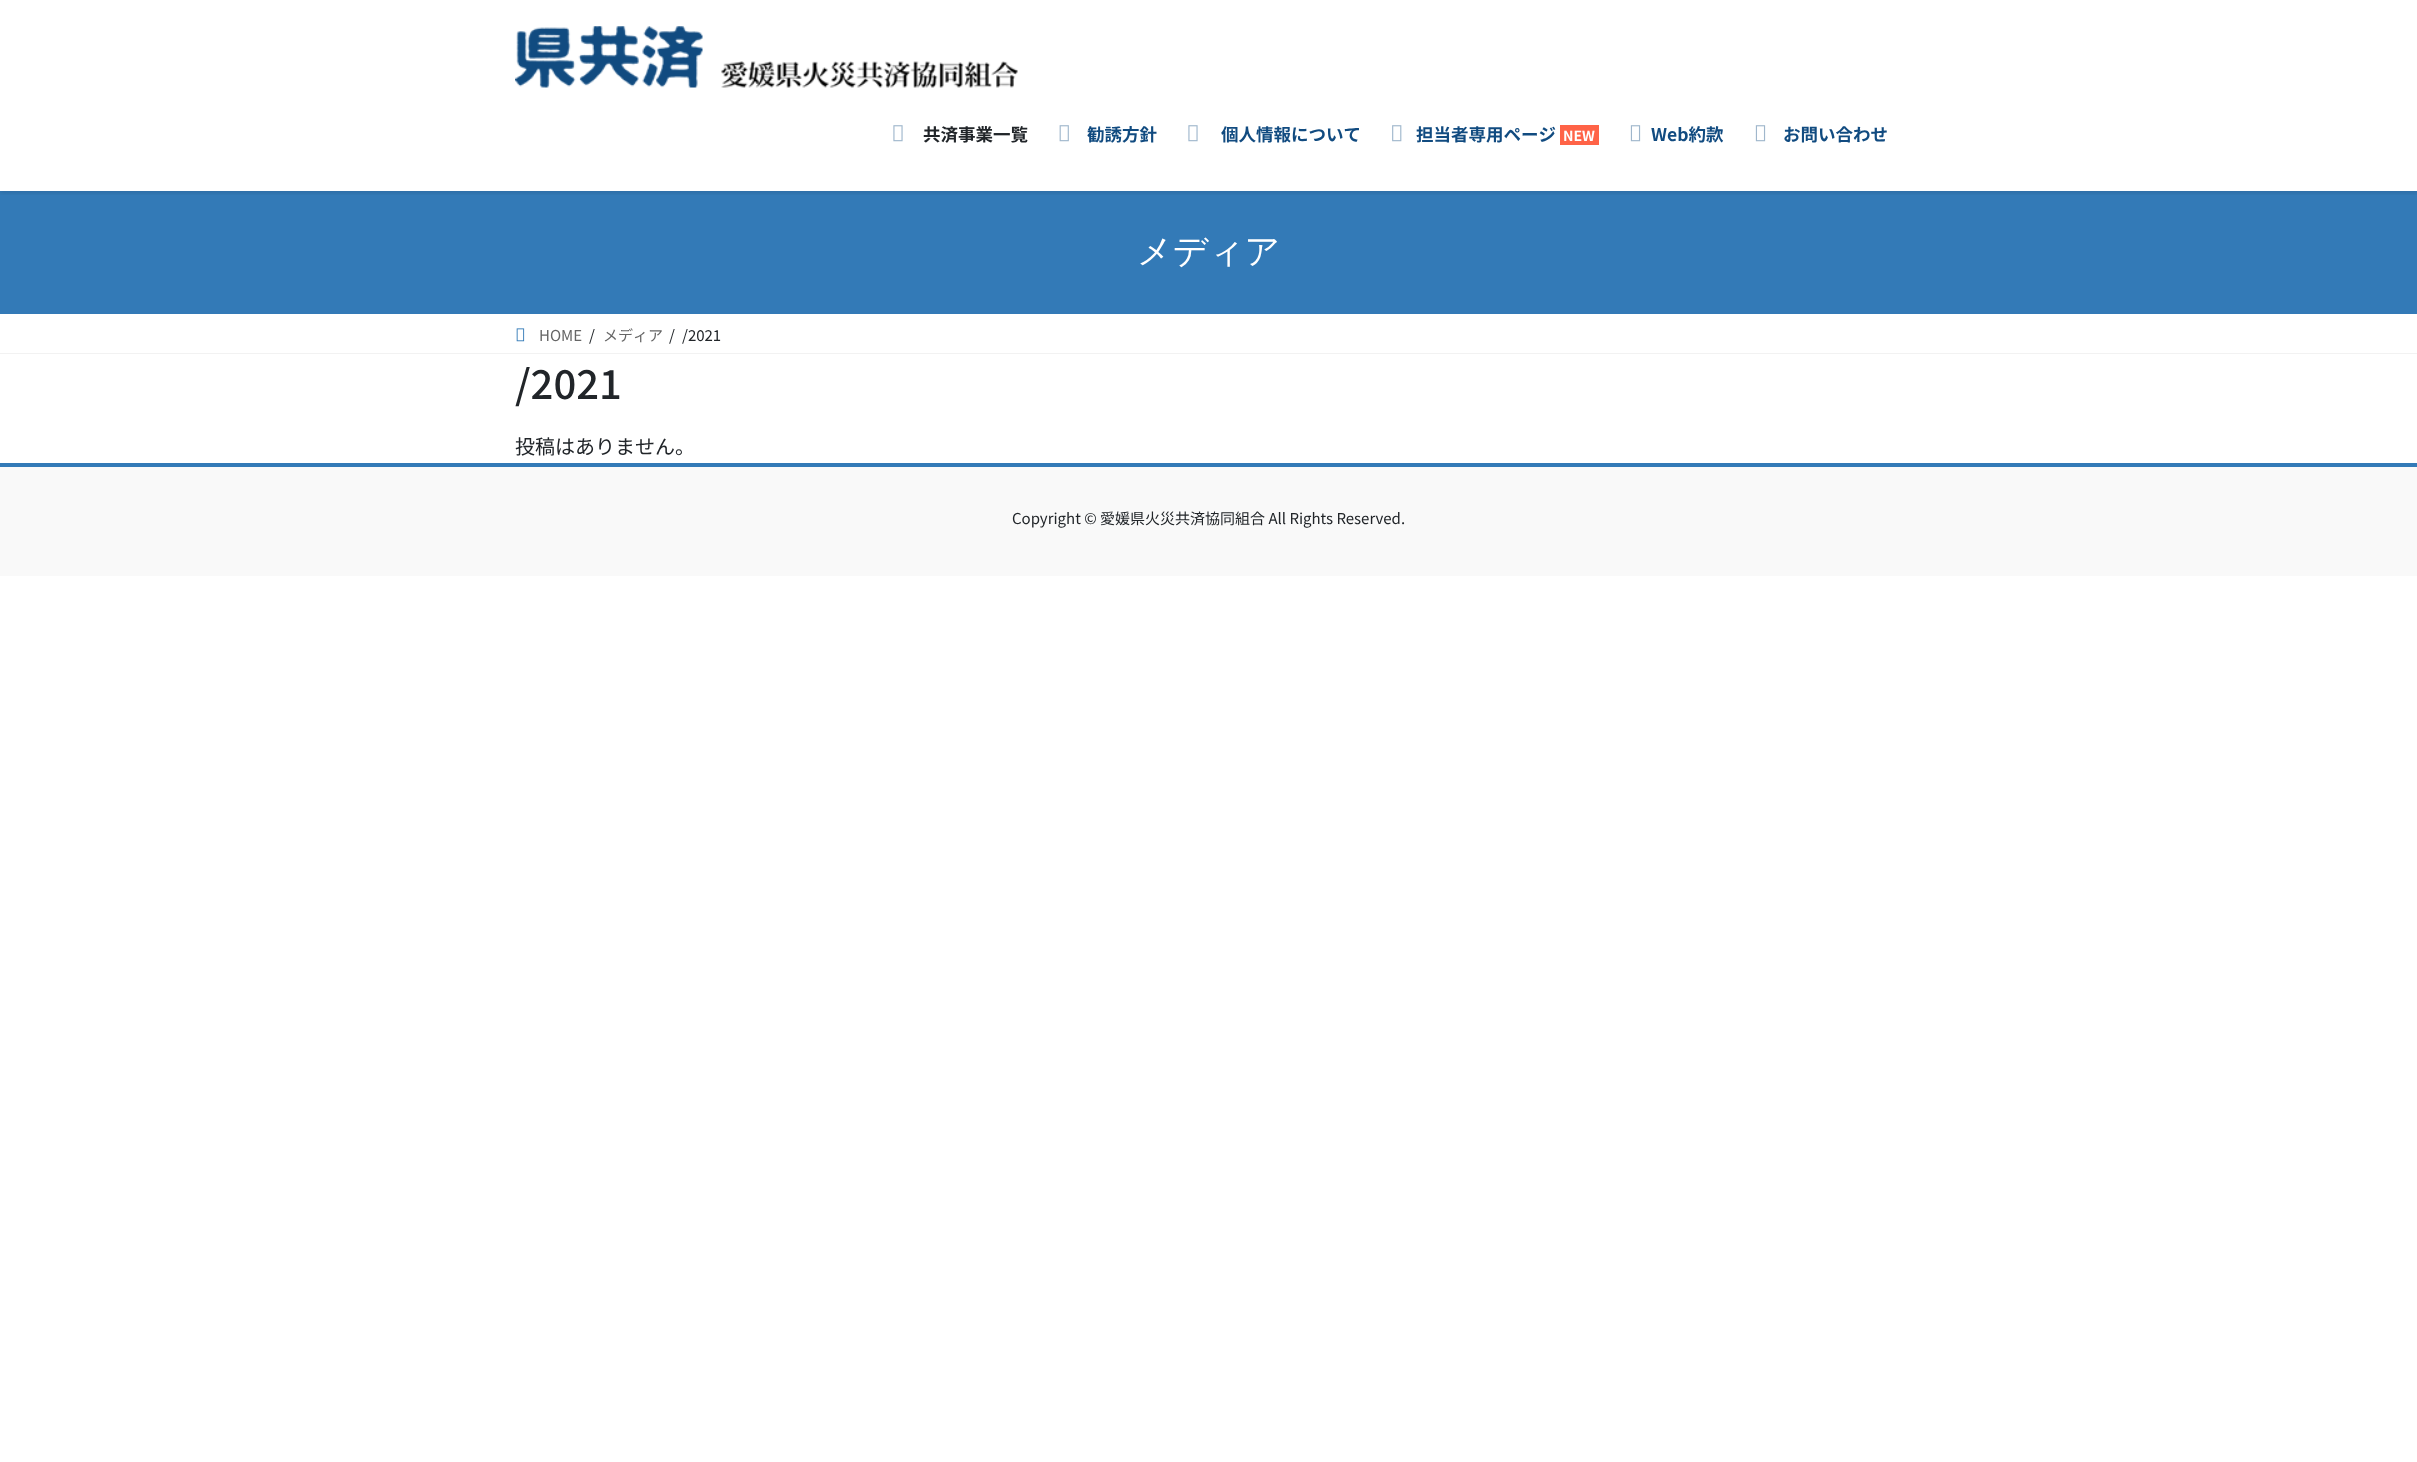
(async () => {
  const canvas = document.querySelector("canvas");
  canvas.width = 2417;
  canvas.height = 1462;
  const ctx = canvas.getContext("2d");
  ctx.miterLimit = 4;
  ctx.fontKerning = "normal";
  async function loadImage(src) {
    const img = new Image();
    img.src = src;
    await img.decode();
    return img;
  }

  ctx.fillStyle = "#ffffff";
  ctx.fillRect(0, 0, 2417, 1462);
  ctx.fillStyle = "#337ab7";
  ctx.fillRect(0, 191, 2417, 123);
  ctx.save();
  ctx.beginPath();
  ctx.rect(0, 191, 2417, 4);
  ctx.clip();
  ctx.fillStyle = "rgba(0, 0, 0, 0.1)";
  ctx.filter = "blur(2px)";
  ctx.beginPath();
  ctx.rect(0, 1, 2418, 192);
  ctx.fill();
  ctx.filter = "none";
  ctx.restore();
  ctx.drawImage(await loadImage("img/1.png"), 515, 26, 503, 62);
  ctx.drawImage(await loadImage("img/2.png"), 893, 125, 10, 17);
  ctx.drawImage(await loadImage("img/3.png"), 1059, 125, 10, 17);
  ctx.drawImage(await loadImage("img/2.png"), 1188, 125, 10, 17);
  ctx.drawImage(await loadImage("img/4.png"), 1392, 125, 10, 17);
  ctx.fillStyle = "#ff6347";
  ctx.fillRect(1560, 125, 39, 20);
  ctx.drawImage(await loadImage("img/5.png"), 1630, 125, 11, 17);
  ctx.drawImage(await loadImage("img/5.png"), 1755, 125, 11, 17);
  ctx.fillStyle = "#f2f2f2";
  ctx.fillRect(0, 353, 2417, 1);
  ctx.drawImage(await loadImage("img/6.png"), 516, 328, 9, 14);
  ctx.fillStyle = "#f9f9f9";
  ctx.fillRect(0, 467, 2417, 109);
  ctx.fillStyle = "#337ab7";
  ctx.fillRect(0, 463, 2417, 4);
  ctx.font = "bold 17.5px Noto Sans JP";
  ctx.fillStyle = "#212529";
  ctx.fillText("共済事業一覧", 923, 141);
  ctx.fillStyle = "#114b80";
  for (const [text, x, y] of [
    ["勧誘方針", 1087, 141],
    ["個人情報について", 1221, 141],
    ["担当者専用ページ", 1416, 141],
  ]) {
    ctx.fillText(text, x, y);
  }
  ctx.font = "bold 14px Noto Sans JP";
  ctx.fillStyle = "#ffffff";
  ctx.fillText("NEW", 1563, 141);
  ctx.font = "bold 17.5px Noto Sans JP";
  ctx.fillStyle = "#114b80";
  ctx.fillText("Web約款", 1651, 141);
  ctx.fillText("お問い合わせ", 1783, 141);
  ctx.font = "500 35px WenQuanYi Zen Hei";
  ctx.fillStyle = "#ffffff";
  ctx.fillText("メディア", 1137, 263);
  ctx.font = "15px Noto Sans JP";
  ctx.fillStyle = "#666666";
  ctx.fillText("HOME", 539, 341);
  ctx.fillStyle = "#212529";
  ctx.fillText("/", 589, 341);
  ctx.fillStyle = "#666666";
  ctx.fillText("メディア", 603, 341);
  ctx.fillStyle = "#212529";
  ctx.fillText("/", 669, 341);
  ctx.fillText("/2021", 682, 341);
  ctx.font = "500 40px Noto Sans JP";
  ctx.fillText("/2021", 515, 399);
  ctx.font = "20px Noto Sans JP";
  ctx.fillText("投稿はありません。", 515, 454);
  ctx.font = "15px Noto Sans JP";
  ctx.fillText("Copyright © 愛媛県火災共済協同組合 All Rights Reserved.", 1012, 524);
})();
